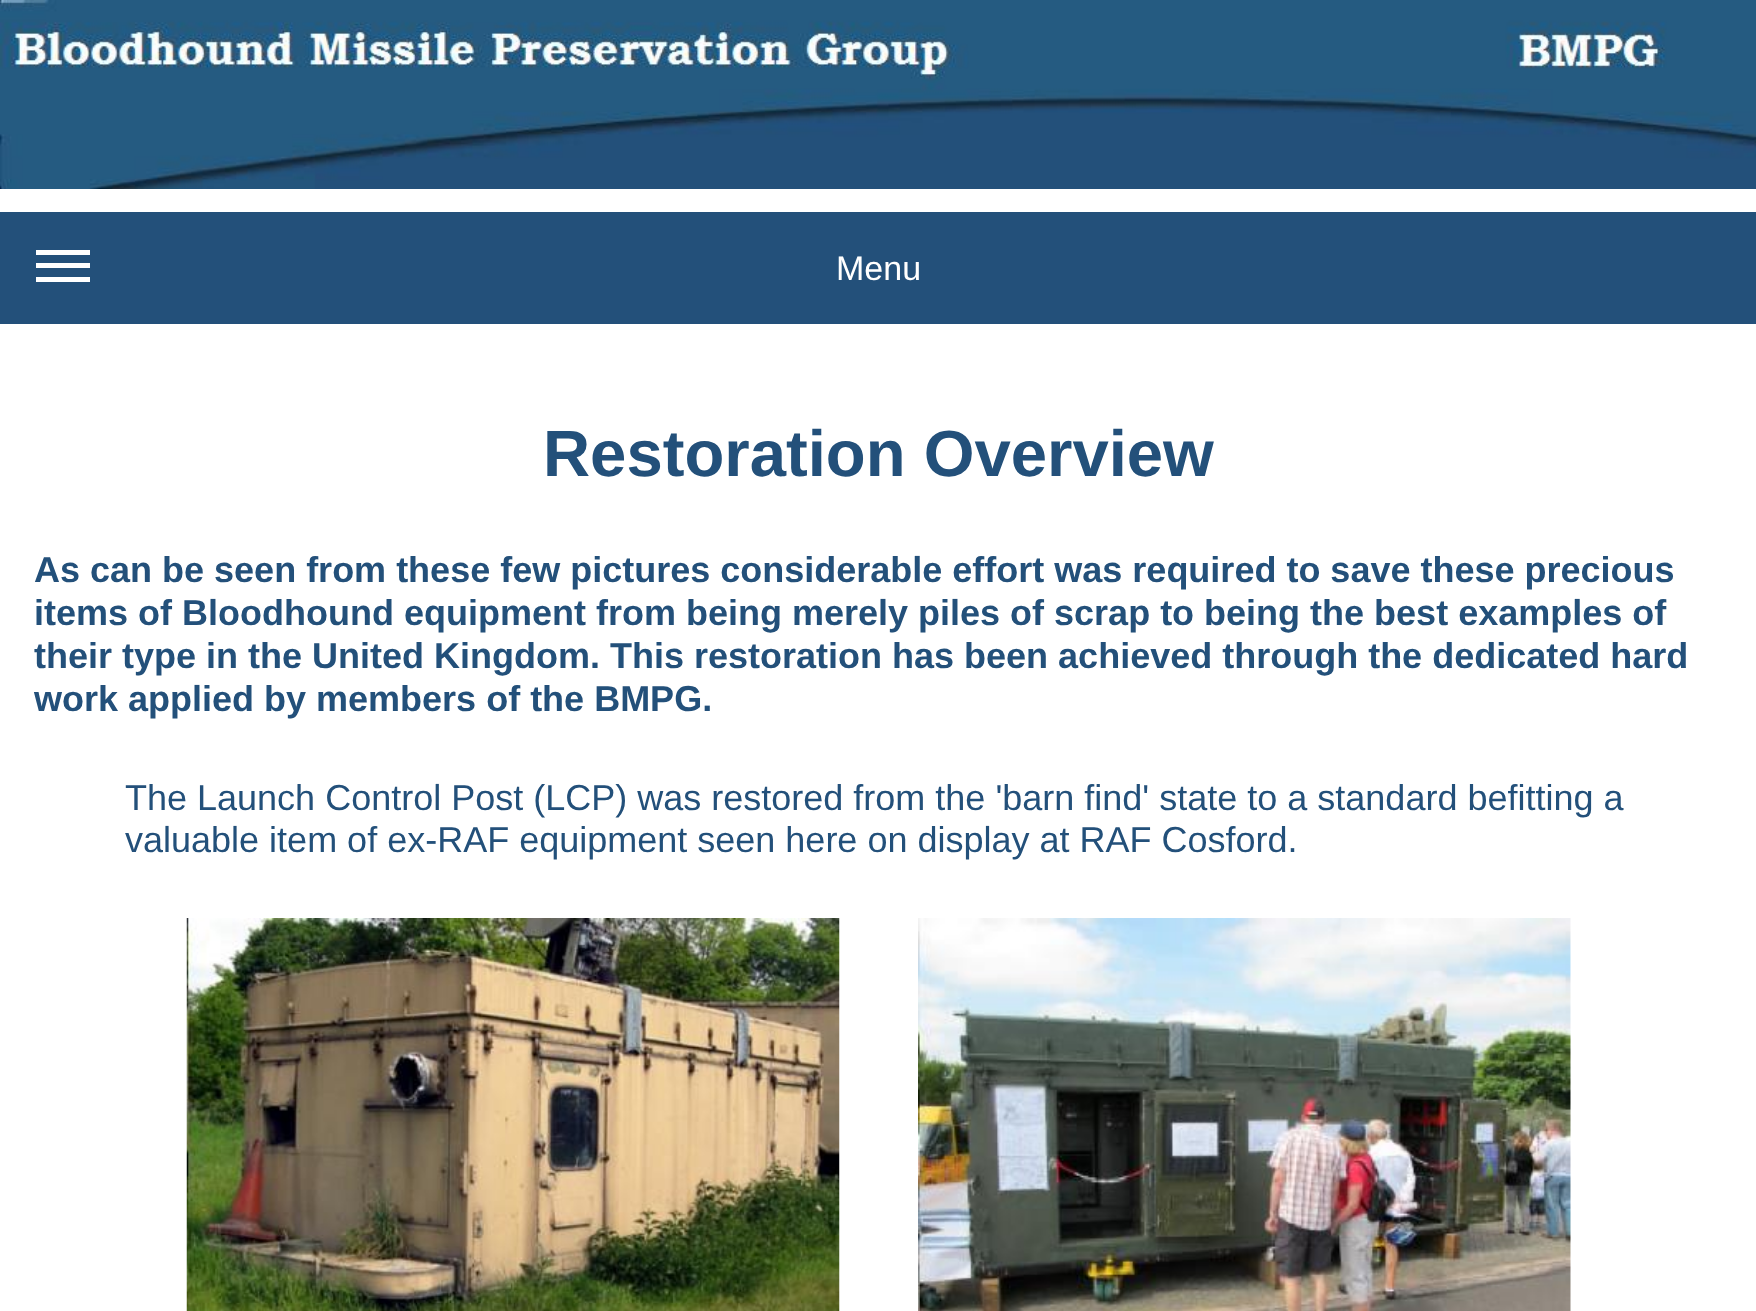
(async () => {
  const canvas = document.querySelector("canvas");
  canvas.width = 1756;
  canvas.height = 1311;
  const ctx = canvas.getContext("2d");
  ctx.miterLimit = 4;
  ctx.fontKerning = "normal";
  async function loadImage(src) {
    const img = new Image();
    img.src = src;
    await img.decode();
    return img;
  }

  ctx.fillStyle = "#ffffff";
  ctx.fillRect(0, 0, 1756, 1311);
  ctx.drawImage(await loadImage("img/1.png"), 0, 0, 1756, 189);
  for (const [x, y, w, h, color] of [
    [0, 212, 1756, 112, "#23507a"],
    [36, 250, 54, 5, "#ffffff"],
    [36, 263, 54, 5, "#ffffff"],
    [36, 277, 54, 5, "#ffffff"],
  ]) {
    ctx.fillStyle = color;
    ctx.fillRect(x, y, w, h);
  }
  ctx.drawImage(await loadImage("img/2.png"), 186, 918, 654, 393);
  ctx.drawImage(await loadImage("img/3.png"), 918, 918, 653, 393);
  ctx.font = "34px Liberation Sans";
  ctx.fillText("Menu", 836, 280);
  ctx.font = "bold 65.25px Liberation Sans";
  ctx.fillStyle = "#23507a";
  ctx.fillText("Restoration Overview", 543, 476);
  ctx.font = "bold 36px Liberation Sans";
  for (const [text, x, y] of [
    ["As can be seen from these few pictures considerable effort was required to save these precious", 34, 582],
    ["items of Bloodhound equipment from being merely piles of scrap to being the best examples of", 34, 625],
    ["their type in the United Kingdom. This restoration has been achieved through the dedicated hard", 34, 668],
    ["work applied by members of the BMPG.", 34, 711],
  ]) {
    ctx.fillText(text, x, y);
  }
  ctx.font = "36px Liberation Sans";
  ctx.fillText("The Launch Control Post (LCP) was restored from the 'barn find' state to a standard befitting a", 125, 810);
  ctx.fillText("valuable item of ex-RAF equipment seen here on display at RAF Cosford.", 125, 852);
})();
